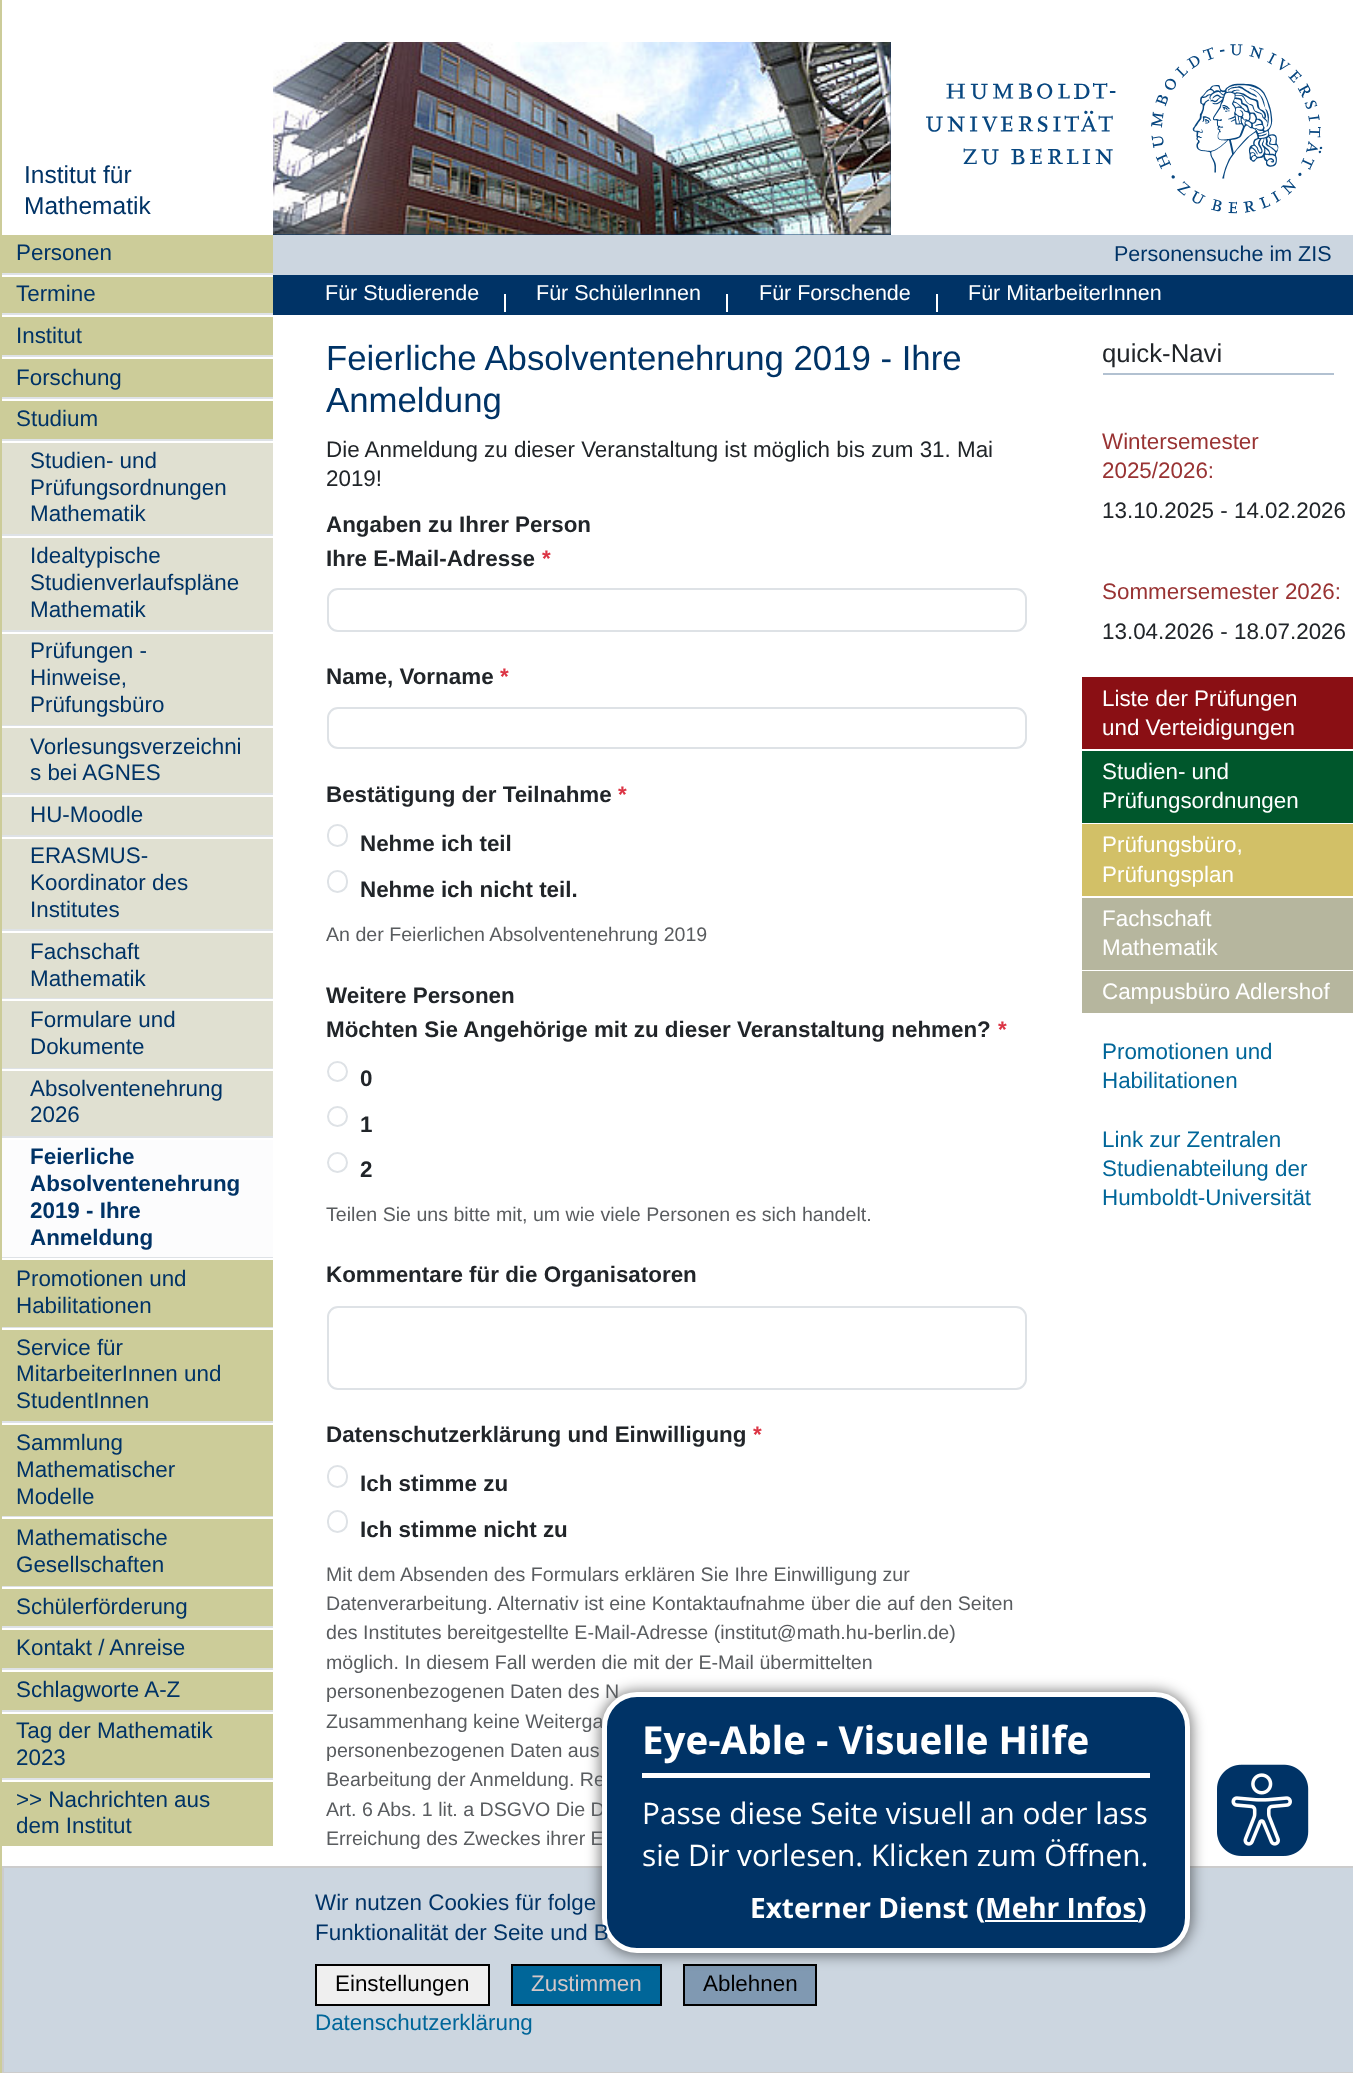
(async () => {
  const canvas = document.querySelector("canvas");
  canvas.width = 1353;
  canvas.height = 2073;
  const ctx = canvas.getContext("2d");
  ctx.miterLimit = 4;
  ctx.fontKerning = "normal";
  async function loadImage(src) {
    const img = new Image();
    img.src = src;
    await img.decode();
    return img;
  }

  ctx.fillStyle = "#ffffff";
  ctx.fillRect(0, 0, 1353, 2073);
  ctx.fillStyle = "#003366";
  ctx.fillRect(273, 42, 618, 193);
  ctx.drawImage(await loadImage("img/1.png"), 273, 42, 618, 193);
  ctx.drawImage(await loadImage("img/2.png"), 926, 44, 397, 170);
  for (const [x, y, w, h, color] of [
    [0, 0, 2, 2073, "#cccc99"],
    [2, 235, 271, 38, "#cccc99"],
    [2, 277, 271, 36, "#cccc99"],
    [2, 273, 271, 2, "#dee2e6"],
    [2, 317, 271, 38, "#cccc99"],
    [2, 313, 271, 2, "#dee2e6"],
    [2, 359, 271, 38, "#cccc99"],
    [2, 355, 271, 2, "#dee2e6"],
    [2, 401, 271, 38, "#cccc99"],
    [2, 397, 271, 2, "#dee2e6"],
    [2, 443, 271, 91, "#e0e0d1"],
    [2, 439, 271, 2, "#dee2e6"],
    [2, 538, 271, 92, "#e0e0d1"],
    [2, 534, 271, 2, "#dee2e6"],
    [2, 634, 271, 91, "#e0e0d1"],
    [2, 630, 271, 2, "#dee2e6"],
    [2, 728, 271, 65, "#e0e0d1"],
    [2, 725, 271, 1, "#dee2e6"],
    [2, 797, 271, 38, "#e0e0d1"],
    [2, 793, 271, 2, "#dee2e6"],
    [2, 839, 271, 90, "#e0e0d1"],
    [2, 835, 271, 2, "#dee2e6"],
    [2, 933, 271, 65, "#e0e0d1"],
    [2, 929, 271, 2, "#dee2e6"],
    [2, 1001, 271, 67, "#e0e0d1"],
    [2, 998, 271, 1, "#dee2e6"],
    [2, 1071, 271, 65, "#e0e0d1"],
    [2, 1068, 271, 1, "#dee2e6"],
    [2, 1136, 271, 2, "#dee2e6"],
    [2, 1140, 271, 117, "#fcfcfd"],
    [2, 1260, 271, 67, "#cccc99"],
    [2, 1257, 271, 1, "#dee2e6"],
    [2, 1330, 271, 91, "#cccc99"],
    [2, 1327, 271, 1, "#dee2e6"],
    [2, 1425, 271, 91, "#cccc99"],
    [2, 1421, 271, 2, "#dee2e6"],
    [2, 1519, 271, 67, "#cccc99"],
    [2, 1516, 271, 1, "#dee2e6"],
    [2, 1589, 271, 37, "#cccc99"],
    [2, 1586, 271, 1, "#dee2e6"],
    [2, 1630, 271, 38, "#cccc99"],
    [2, 1626, 271, 2, "#dee2e6"],
    [2, 1672, 271, 38, "#cccc99"],
    [2, 1668, 271, 2, "#dee2e6"],
    [2, 1714, 271, 64, "#cccc99"],
    [2, 1710, 271, 2, "#dee2e6"],
    [2, 1782, 271, 64, "#cccc99"],
    [2, 1778, 271, 2, "#dee2e6"],
    [273, 235, 1080, 40, "#ccd6e0"],
    [273, 275, 1080, 40, "#003366"],
    [504, 294, 2, 18, "#ffffff"],
    [726, 294, 2, 18, "#ffffff"],
    [936, 294, 2, 18, "#ffffff"],
  ]) {
    ctx.fillStyle = color;
    ctx.fillRect(x, y, w, h);
  }
  ctx.beginPath();
  ctx.roundRect(328, 589, 698, 42, 10);
  ctx.strokeStyle = "#dee2e6";
  ctx.lineWidth = 2;
  ctx.stroke();
  ctx.beginPath();
  ctx.roundRect(328, 708, 698, 40, 10);
  ctx.stroke();
  ctx.beginPath();
  ctx.roundRect(328, 825, 19, 21, 9.5);
  ctx.stroke();
  ctx.beginPath();
  ctx.roundRect(328, 871, 19, 21, 9.5);
  ctx.stroke();
  ctx.beginPath();
  ctx.arc(337.5, 1071.5, 9.5, 0, Math.PI * 2);
  ctx.stroke();
  ctx.beginPath();
  ctx.arc(337.5, 1116.5, 9.5, 0, Math.PI * 2);
  ctx.stroke();
  ctx.beginPath();
  ctx.arc(337.5, 1162.5, 9.5, 0, Math.PI * 2);
  ctx.stroke();
  ctx.beginPath();
  ctx.roundRect(328, 1307, 698, 82, 10);
  ctx.stroke();
  ctx.beginPath();
  ctx.roundRect(328, 1466, 19, 21, 9.5);
  ctx.stroke();
  ctx.beginPath();
  ctx.roundRect(328, 1511, 19, 21, 9.5);
  ctx.stroke();
  for (const [x, y, w, h, color] of [
    [1103, 373, 231, 2, "#b2c1d1"],
    [1082, 677, 271, 72, "#8a0f14"],
    [1082, 751, 271, 72, "#00572c"],
    [1082, 824, 271, 72, "#d2c067"],
    [1082, 898, 271, 72, "#b6b69e"],
    [1082, 971, 271, 42, "#b6b69e"],
  ]) {
    ctx.fillStyle = color;
    ctx.fillRect(x, y, w, h);
  }
  ctx.fillStyle = "#ccd6e0";
  ctx.beginPath();
  ctx.rect(3, 1867, 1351, 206);
  ctx.fill();
  ctx.strokeStyle = "#cccccc";
  ctx.stroke();
  ctx.fillStyle = "#006699";
  ctx.beginPath();
  ctx.rect(512, 1965, 149, 40);
  ctx.fill();
  ctx.strokeStyle = "#000000";
  ctx.stroke();
  ctx.fillStyle = "#8099b2";
  ctx.beginPath();
  ctx.rect(684, 1965, 132, 40);
  ctx.fill();
  ctx.stroke();
  ctx.fillStyle = "rgba(0, 0, 0, 0.5)";
  ctx.filter = "blur(7px)";
  ctx.beginPath();
  ctx.roundRect(600, 1691, 592, 264, 37);
  ctx.fill();
  ctx.filter = "none";
  ctx.drawImage(await loadImage("img/3.png"), 1217, 1764, 92, 92);
  ctx.fillStyle = "#efefef";
  ctx.beginPath();
  ctx.rect(316, 1965, 173, 40);
  ctx.fill();
  ctx.stroke();
  ctx.font = "24.5px Liberation Sans";
  ctx.fillStyle = "#003366";
  ctx.fillText("Institut für", 24, 183);
  ctx.fillText("Mathematik", 24, 214);
  ctx.font = "22.4px Liberation Sans";
  for (const [text, x, y] of [
    ["Personen", 16, 260],
    ["Termine", 16, 301],
    ["Institut", 16, 343],
    ["Forschung", 16, 385],
    ["Studium", 16, 426],
    ["Studien- und", 30, 468],
    ["Prüfungsordnungen", 30, 495],
    ["Mathematik", 30, 521],
    ["Idealtypische", 30, 563],
    ["Studienverlaufspläne", 30, 590],
    ["Mathematik", 30, 617],
    ["Prüfungen -", 30, 658],
    ["Hinweise,", 30, 685],
    ["Prüfungsbüro", 30, 712],
    ["Vorlesungsverzeichni", 30, 754],
    ["s bei AGNES", 30, 780],
    ["HU-Moodle", 30, 822],
    ["ERASMUS-", 30, 863],
    ["Koordinator des", 30, 890],
    ["Institutes", 30, 917],
    ["Fachschaft", 30, 959],
    ["Mathematik", 30, 986],
    ["Formulare und", 30, 1027],
    ["Dokumente", 30, 1054],
    ["Absolventenehrung", 30, 1096],
    ["2026", 30, 1122],
  ]) {
    ctx.fillText(text, x, y);
  }
  ctx.font = "bold 22.4px Liberation Sans";
  for (const [text, x, y] of [
    ["Feierliche", 30, 1164],
    ["Absolventenehrung", 30, 1191],
    ["2019 - Ihre", 30, 1218],
    ["Anmeldung", 30, 1245],
  ]) {
    ctx.fillText(text, x, y);
  }
  ctx.font = "22.4px Liberation Sans";
  for (const [text, x, y] of [
    ["Promotionen und", 16, 1286],
    ["Habilitationen", 16, 1313],
    ["Service für", 16, 1355],
    ["MitarbeiterInnen und", 16, 1381],
    ["StudentInnen", 16, 1408],
    ["Sammlung", 16, 1450],
    ["Mathematischer", 16, 1477],
    ["Modelle", 16, 1504],
    ["Mathematische", 16, 1545],
    ["Gesellschaften", 16, 1572],
    ["Schülerförderung", 16, 1614],
    ["Kontakt / Anreise", 16, 1655],
    ["Schlagworte A-Z", 16, 1697],
    ["Tag der Mathematik", 16, 1738],
    ["2023", 16, 1765],
    [">> Nachrichten aus", 16, 1807],
    ["dem Institut", 16, 1833],
  ]) {
    ctx.fillText(text, x, y);
  }
  ctx.font = "21.5px Liberation Sans";
  ctx.fillText("Personensuche im ZIS", 1114, 261);
  ctx.fillStyle = "#ffffff";
  for (const [text, x, y] of [
    ["Für Studierende", 325, 300],
    ["Für SchülerInnen", 536, 300],
    ["Für Forschende", 759, 300],
    ["Für MitarbeiterInnen", 968, 300],
  ]) {
    ctx.fillText(text, x, y);
  }
  ctx.font = "34.75px Liberation Sans";
  ctx.fillStyle = "#003366";
  ctx.fillText("Feierliche Absolventenehrung 2019 - Ihre", 326, 370);
  ctx.fillText("Anmeldung", 326, 412);
  ctx.font = "22.4px Liberation Sans";
  ctx.fillStyle = "#212529";
  ctx.fillText("Die Anmeldung zu dieser Veranstaltung ist möglich bis zum 31. Mai", 326, 457);
  ctx.fillText("2019!", 326, 486);
  ctx.font = "bold 22.4px Liberation Sans";
  ctx.fillText("Angaben zu Ihrer Person", 326, 532);
  ctx.fillText("Ihre E-Mail-Adresse", 326, 566);
  ctx.fillStyle = "#dc3545";
  ctx.fillText("*", 542, 566);
  ctx.fillStyle = "#212529";
  ctx.fillText("Name, Vorname", 326, 684);
  ctx.fillStyle = "#dc3545";
  ctx.fillText("*", 500, 684);
  ctx.fillStyle = "#212529";
  ctx.fillText("Bestätigung der Teilnahme", 326, 802);
  ctx.fillStyle = "#dc3545";
  ctx.fillText("*", 618, 802);
  ctx.fillStyle = "#212529";
  ctx.fillText("Nehme ich teil", 360, 851);
  ctx.fillText("Nehme ich nicht teil.", 360, 897);
  ctx.font = "19.6px Liberation Sans";
  ctx.fillStyle = "#595c5f";
  ctx.fillText("An der Feierlichen Absolventenehrung 2019", 326, 941);
  ctx.font = "bold 22.4px Liberation Sans";
  ctx.fillStyle = "#212529";
  ctx.fillText("Weitere Personen", 326, 1003);
  ctx.fillText("Möchten Sie Angehörige mit zu dieser Veranstaltung nehmen?", 326, 1037);
  ctx.fillStyle = "#dc3545";
  ctx.fillText("*", 998, 1037);
  ctx.fillStyle = "#212529";
  for (const [text, x, y] of [
    ["0", 360, 1086],
    ["1", 360, 1132],
    ["2", 360, 1177],
  ]) {
    ctx.fillText(text, x, y);
  }
  ctx.font = "19.6px Liberation Sans";
  ctx.fillStyle = "#595c5f";
  ctx.fillText("Teilen Sie uns bitte mit, um wie viele Personen es sich handelt.", 326, 1221);
  ctx.font = "bold 22.4px Liberation Sans";
  ctx.fillStyle = "#212529";
  ctx.fillText("Kommentare für die Organisatoren", 326, 1282);
  ctx.fillText("Datenschutzerklärung und Einwilligung", 326, 1442);
  ctx.fillStyle = "#dc3545";
  ctx.fillText("*", 753, 1442);
  ctx.fillStyle = "#212529";
  ctx.fillText("Ich stimme zu", 360, 1491);
  ctx.fillText("Ich stimme nicht zu", 360, 1537);
  ctx.font = "19.6px Liberation Sans";
  ctx.fillStyle = "#595c5f";
  for (const [text, x, y] of [
    ["Mit dem Absenden des Formulars erklären Sie Ihre Einwilligung zur", 326, 1581],
    ["Datenverarbeitung. Alternativ ist eine Kontaktaufnahme über die auf den Seiten", 326, 1610],
    ["des Institutes bereitgestellte E-Mail-Adresse (institut@math.hu-berlin.de)", 326, 1639],
    ["möglich. In diesem Fall werden die mit der E-Mail übermittelten", 326, 1669],
    ["personenbezogenen Daten des N", 326, 1698],
    ["Zusammenhang keine Weiterga", 326, 1728],
    ["personenbezogenen Daten aus", 326, 1757],
    ["Bearbeitung der Anmeldung. Re", 326, 1786],
    ["Art. 6 Abs. 1 lit. a DSGVO Die D", 326, 1816],
    ["Erreichung des Zweckes ihrer E", 326, 1845],
  ]) {
    ctx.fillText(text, x, y);
  }
  ctx.font = "25.75px Liberation Sans";
  ctx.fillStyle = "#212529";
  ctx.fillText("quick-Navi", 1102, 362);
  ctx.font = "22.4px Liberation Sans";
  ctx.fillStyle = "#993333";
  ctx.fillText("Wintersemester", 1102, 449);
  ctx.fillText("2025/2026:", 1102, 478);
  ctx.fillStyle = "#212529";
  ctx.fillText("13.10.2025 - 14.02.2026", 1102, 518);
  ctx.fillStyle = "#993333";
  ctx.fillText("Sommersemester 2026:", 1102, 599);
  ctx.fillStyle = "#212529";
  ctx.fillText("13.04.2026 - 18.07.2026", 1102, 639);
  ctx.fillStyle = "#ffffff";
  for (const [text, x, y] of [
    ["Liste der Prüfungen", 1102, 706],
    ["und Verteidigungen", 1102, 735],
    ["Studien- und", 1102, 779],
    ["Prüfungsordnungen", 1102, 808],
    ["Prüfungsbüro,", 1102, 852],
    ["Prüfungsplan", 1102, 882],
    ["Fachschaft", 1102, 926],
    ["Mathematik", 1102, 955],
    ["Campusbüro Adlershof", 1102, 999],
  ]) {
    ctx.fillText(text, x, y);
  }
  ctx.fillStyle = "#006699";
  for (const [text, x, y] of [
    ["Promotionen und", 1102, 1059],
    ["Habilitationen", 1102, 1088],
    ["Link zur Zentralen", 1102, 1147],
    ["Studienabteilung der", 1102, 1176],
    ["Humboldt-Universität", 1102, 1205],
  ]) {
    ctx.fillText(text, x, y);
  }
  ctx.fillStyle = "#003366";
  ctx.beginPath();
  ctx.roundRect(604.5, 1694.5, 583, 256, 32.5);
  ctx.fill();
  ctx.strokeStyle = "#ffffff";
  ctx.lineWidth = 5;
  ctx.stroke();
  ctx.fillStyle = "#ffffff";
  ctx.fillRect(642, 1773, 508, 5);
  ctx.font = "bold 38.5px Open Sans";
  ctx.fillText("Eye-Able - Visuelle Hilfe", 642, 1754);
  ctx.font = "29.75px Open Sans";
  ctx.fillText("Passe diese Seite visuell an oder lass", 642, 1824);
  ctx.fillText("sie Dir vorlesen. Klicken zum Öffnen.", 642, 1866);
  ctx.font = "bold 28px Open Sans";
  ctx.fillText("Externer Dienst (Mehr Infos", 750, 1918);
  ctx.fillRect(985, 1920, 153, 2);
  ctx.fillText(")", 1137, 1918);
  ctx.font = "22.4px Liberation Sans";
  ctx.fillStyle = "#003366";
  ctx.fillText("Wir nutzen Cookies für folge", 315, 1910);
  ctx.fillText("Funktionalität der Seite und B", 315, 1940);
  ctx.fillStyle = "#000000";
  ctx.fillText("Einstellungen", 335, 1991);
  ctx.fillStyle = "#d5c7c7";
  ctx.fillText("Zustimmen", 531, 1991);
  ctx.fillStyle = "#000000";
  ctx.fillText("Ablehnen", 703, 1991);
  ctx.fillStyle = "#006699";
  ctx.fillText("Datenschutzerklärung", 315, 2030);
})();
